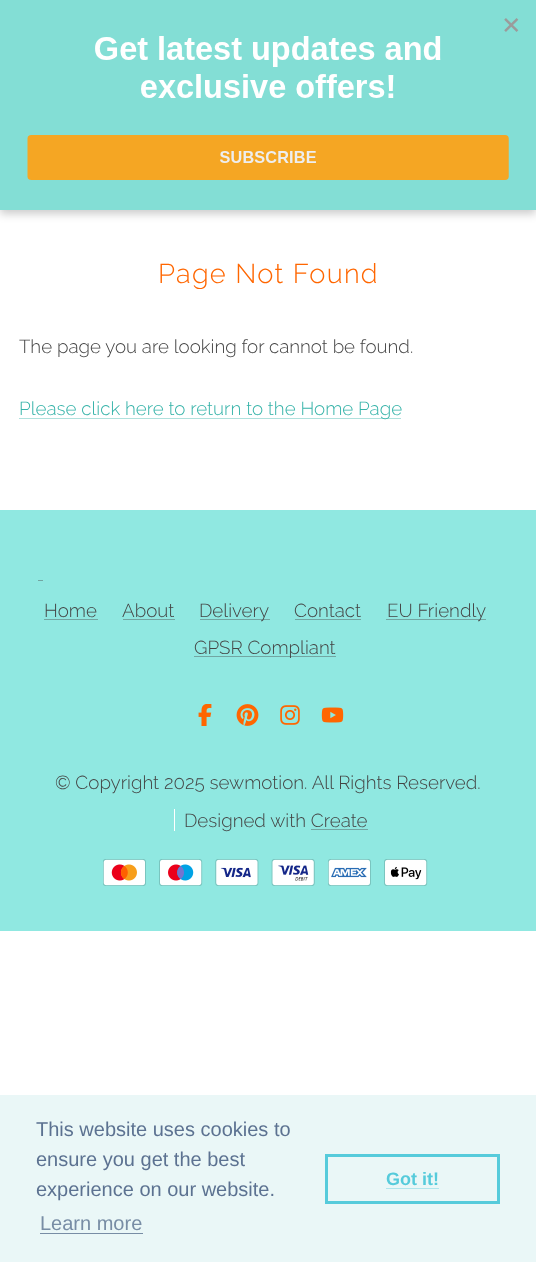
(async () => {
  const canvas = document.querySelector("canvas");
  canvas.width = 536;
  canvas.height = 1262;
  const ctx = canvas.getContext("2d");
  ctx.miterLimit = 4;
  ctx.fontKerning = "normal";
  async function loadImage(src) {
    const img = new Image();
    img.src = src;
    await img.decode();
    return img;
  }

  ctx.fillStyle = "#ffffff";
  ctx.fillRect(0, 0, 536, 1262);
  ctx.fillStyle = "rgba(0, 0, 0, 0.2)";
  ctx.filter = "blur(4px)";
  ctx.beginPath();
  ctx.rect(0, 4, 536, 210);
  ctx.fill();
  ctx.filter = "none";
  ctx.drawImage(await loadImage("img/1.png"), 0, 0, 536, 210);
  for (const [x, y, w, h, color] of [
    [19, 418, 382, 1, "#afe1dd"],
    [0, 510, 536, 421, "#90e8e1"],
    [38, 580, 5, 1, "#72a6a2"],
    [44, 619, 54, 1, "#72a6a2"],
    [123, 619, 52, 1, "#72a6a2"],
    [200, 619, 70, 1, "#72a6a2"],
    [295, 619, 66, 1, "#72a6a2"],
    [386, 619, 100, 1, "#72a6a2"],
    [194, 656, 142, 1, "#72a6a2"],
  ]) {
    ctx.fillStyle = color;
    ctx.fillRect(x, y, w, h);
  }
  ctx.drawImage(await loadImage("img/2.png"), 198, 704, 14, 22);
  ctx.drawImage(await loadImage("img/3.png"), 236, 704, 23, 22);
  ctx.drawImage(await loadImage("img/4.png"), 280, 705, 20, 20);
  ctx.drawImage(await loadImage("img/5.png"), 321, 707, 23, 16);
  ctx.fillStyle = "#ffffff";
  ctx.fillRect(174, 809, 1, 22);
  ctx.drawImage(await loadImage("img/6.png"), 103, 859, 43, 27);
  ctx.drawImage(await loadImage("img/7.png"), 159, 859, 44, 27);
  ctx.drawImage(await loadImage("img/8.png"), 215, 859, 44, 27);
  ctx.drawImage(await loadImage("img/9.png"), 271, 859, 44, 27);
  ctx.drawImage(await loadImage("img/10.png"), 328, 859, 43, 27);
  ctx.drawImage(await loadImage("img/11.png"), 384, 859, 44, 27);
  ctx.fillStyle = "#eaf7f7";
  ctx.fillRect(0, 1095, 536, 167);
  ctx.fillStyle = "#788da5";
  ctx.fillRect(40, 1233, 103, 1);
  ctx.strokeStyle = "#56cbdb";
  ctx.lineWidth = 3;
  ctx.strokeRect(326.5, 1155.5, 172, 47);
  ctx.fillStyle = "#afe5ec";
  ctx.fillRect(386, 1188, 53, 1);
  ctx.letterSpacing = "1.25px";
  ctx.font = "300 27.25px Raleway";
  ctx.fillStyle = "#ff6600";
  ctx.fillText("Page Not Found", 158, 283);
  ctx.letterSpacing = "0px";
  ctx.font = "300 18.75px Raleway";
  ctx.fillStyle = "#444444";
  ctx.fillText("The page you are looking for cannot be found.", 19, 353);
  ctx.fillStyle = "#36b3a9";
  ctx.fillText("Please click here to return to the Home Page", 19, 415);
  ctx.fillStyle = "#444444";
  for (const [text, x, y] of [
    ["Home", 44, 617],
    ["About", 122, 617],
    ["Delivery", 199, 617],
    ["Contact", 294, 617],
    ["EU Friendly", 387, 617],
    ["GPSR Compliant", 194, 654],
    ["© Copyright 2025 sewmotion. All Rights Reserved.", 55, 789],
    ["Designed with Create", 184, 827],
  ]) {
    ctx.fillText(text, x, y);
  }
  ctx.fillStyle = "#72a6a2";
  ctx.fillRect(311, 829, 57, 1);
  ctx.font = "20px Liberation Sans";
  ctx.fillStyle = "#5c7291";
  for (const [text, x, y] of [
    ["This website uses cookies to", 36, 1136],
    ["ensure you get the best", 36, 1166],
    ["experience on our website.", 36, 1196],
  ]) {
    ctx.fillText(text, x, y);
  }
  ctx.fillStyle = "#788da5";
  ctx.fillText("Learn more", 40, 1230);
  ctx.font = "bold 18px Liberation Sans";
  ctx.fillStyle = "#56cbdb";
  ctx.fillText("Got it!", 386, 1185);
})();
